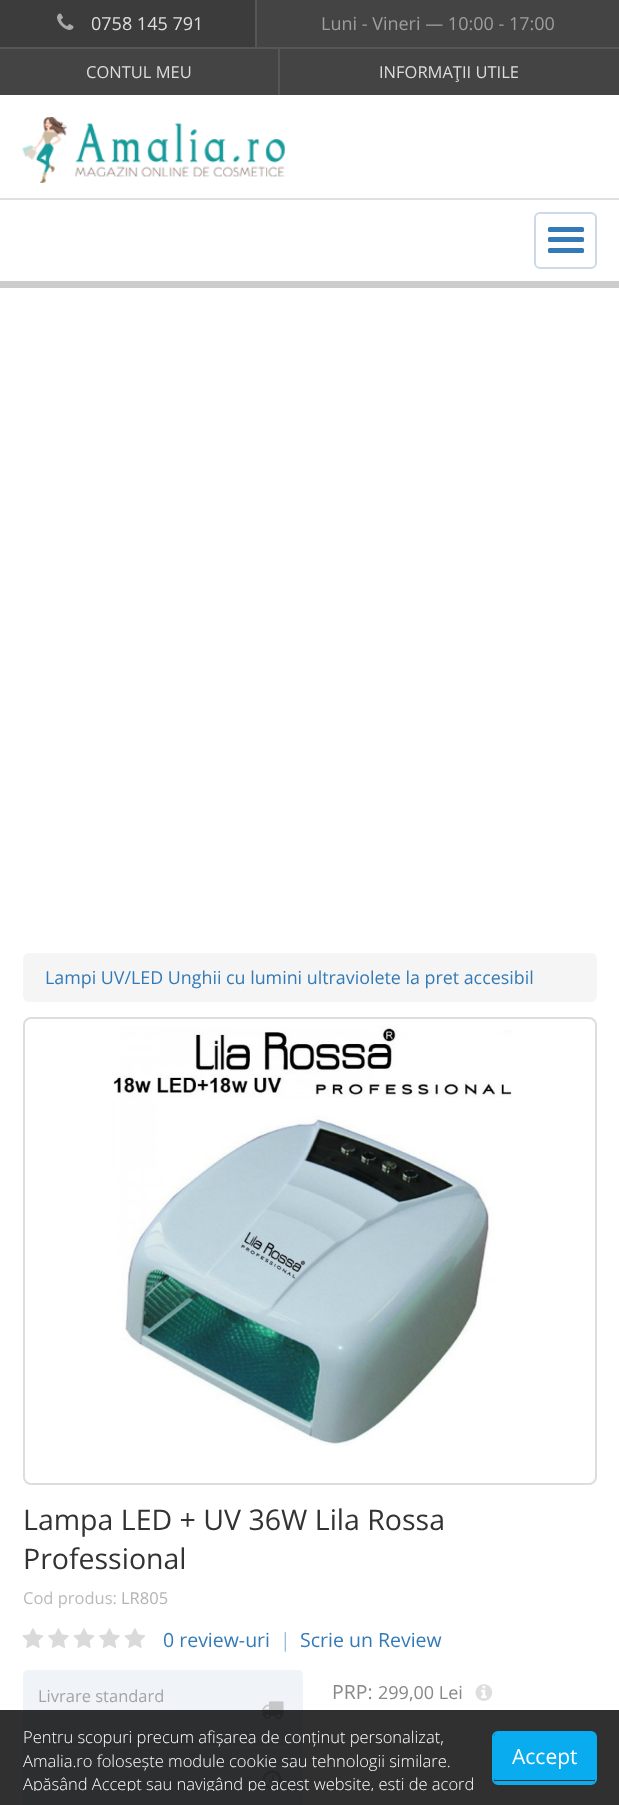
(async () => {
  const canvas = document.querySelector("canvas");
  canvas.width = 619;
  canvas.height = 1805;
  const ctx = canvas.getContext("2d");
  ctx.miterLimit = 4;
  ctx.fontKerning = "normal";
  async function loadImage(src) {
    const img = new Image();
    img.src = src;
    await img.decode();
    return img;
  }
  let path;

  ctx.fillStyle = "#ffffff";
  ctx.fillRect(0, 0, 619, 1805);
  for (const [x, y, w, h, color] of [
    [0, 0, 619, 95, "#444444"],
    [0, 47, 619, 2, "#565656"],
    [0, 0, 255, 47, "#3c3c3c"],
  ]) {
    ctx.fillStyle = color;
    ctx.fillRect(x, y, w, h);
  }
  ctx.drawImage(await loadImage("img/1.png"), 57, 13, 17, 17);
  for (const [x, y, w, h, color] of [
    [255, 0, 2, 47, "#565656"],
    [278, 48, 2, 47, "#565656"],
    [0, 198, 619, 2, "#e0e0e0"],
  ]) {
    ctx.fillStyle = color;
    ctx.fillRect(x, y, w, h);
  }
  ctx.drawImage(await loadImage("img/2.png"), 22, 117, 263, 66);
  ctx.fillStyle = "#cccccc";
  ctx.fillRect(0, 281, 619, 7);
  ctx.beginPath();
  ctx.roundRect(535, 213, 61, 55, 5);
  ctx.strokeStyle = "#ccd9e9";
  ctx.lineWidth = 2;
  ctx.stroke();
  ctx.fillStyle = "#337ab7";
  ctx.beginPath();
  ctx.roundRect(548, 227, 36, 5, 1.5);
  ctx.fill();
  ctx.beginPath();
  ctx.roundRect(548, 237, 36, 5, 1.5);
  ctx.fill();
  ctx.beginPath();
  ctx.roundRect(548, 248, 36, 5, 1.5);
  ctx.fill();
  ctx.fillStyle = "#f5f5f5";
  ctx.beginPath();
  ctx.roundRect(23, 953, 574, 49, 6);
  ctx.fill();
  ctx.beginPath();
  ctx.roundRect(24, 1018, 572, 466, 7);
  ctx.strokeStyle = "#dddddd";
  ctx.stroke();
  ctx.drawImage(await loadImage("img/3.png"), 113, 1026, 399, 420);
  ctx.drawImage(await loadImage("img/4.png"), 22, 1628, 22, 20);
  ctx.drawImage(await loadImage("img/5.png"), 48, 1628, 21, 20);
  ctx.drawImage(await loadImage("img/4.png"), 73, 1628, 22, 20);
  ctx.drawImage(await loadImage("img/5.png"), 99, 1628, 21, 20);
  ctx.drawImage(await loadImage("img/4.png"), 124, 1628, 22, 20);
  ctx.fillStyle = "#f0f4f8";
  ctx.beginPath();
  ctx.roundRect(23, 1670, 280, 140, 5);
  ctx.fill();
  ctx.fillStyle = "#fbfcfd";
  ctx.fillRect(38, 1746, 250, 2);
  ctx.drawImage(await loadImage("img/6.png"), 261, 1701, 23, 18);
  ctx.drawImage(await loadImage("img/7.png"), 262, 1770, 20, 20);
  ctx.drawImage(await loadImage("img/8.png"), 475, 1684, 18, 17);
  ctx.fillStyle = "rgba(0, 0, 0, 0.81)";
  ctx.fillRect(0, 1710, 619, 95);
  ctx.fillStyle = "#09adef";
  path = new Path2D("M498 1732H591C593 1732 596 1735 596 1737V1779C596 1780 593 1780 591 1780H498C496 1780 494 1780 494 1779V1737C494 1735 496 1732 498 1732Z");
  ctx.fill(path);
  ctx.beginPath();
  ctx.roundRect(493, 1732, 103, 52, 5);
  ctx.strokeStyle = "#09adef";
  ctx.stroke();
  ctx.fillRect(495, 1781, 99, 2);
  ctx.font = "18px Open Sans";
  ctx.fillStyle = "#dedede";
  ctx.fillText("0758 145 791", 91, 30);
  ctx.fillStyle = "#9e9e9e";
  ctx.fillText("Luni - Vineri — 10:00 - 17:00", 321, 30);
  ctx.font = "16.5px Open Sans";
  ctx.fillStyle = "#dedede";
  ctx.fillText("CONTUL MEU", 86, 78);
  ctx.fillText("INFORMAŢII UTILE", 379, 78);
  ctx.font = "17.85px Open Sans";
  ctx.fillStyle = "#337ab7";
  ctx.fillText("Lampi UV/LED Unghii cu lumini ultraviolete la pret accesibil", 45, 984);
  ctx.font = "28.5px Open Sans";
  ctx.fillStyle = "#333333";
  ctx.fillText("Lampa LED + UV 36W Lila Rossa", 23, 1530);
  ctx.fillText("Professional", 23, 1569);
  ctx.font = "16.5px Open Sans";
  ctx.fillStyle = "#bababa";
  ctx.fillText("Cod produs:", 23, 1604);
  ctx.fillStyle = "#b3b3b3";
  ctx.fillText("LR805", 121, 1604);
  ctx.font = "19.5px Open Sans";
  ctx.fillStyle = "#337ab7";
  ctx.fillText("0 review-uri", 163, 1647);
  ctx.fillStyle = "#99bddb";
  ctx.fillText("|", 280, 1647);
  ctx.fillStyle = "#337ab7";
  ctx.fillText("Scrie un Review", 300, 1647);
  ctx.font = "16.5px Open Sans";
  ctx.fillStyle = "#a3a4a5";
  ctx.fillText("Livrare standard", 38, 1702);
  ctx.font = "19.5px Open Sans";
  ctx.fillStyle = "#888888";
  ctx.fillText("PRP:", 332, 1699);
  ctx.font = "18px Open Sans";
  ctx.fillText("299,00 Lei", 378, 1699);
  ctx.font = "300 16.5px Open Sans";
  ctx.fillStyle = "#ffffff";
  ctx.fillText("Pentru scopuri precum afișarea de conținut personalizat,", 23, 1743);
  ctx.fillText("Amalia.ro folosește module cookie sau tehnologii similare.", 23, 1767);
  ctx.save();
  ctx.beginPath();
  ctx.rect(23, 1725, 454, 66);
  ctx.clip();
  ctx.fillText("Apăsând Accept sau navigând pe acest website, ești de acord", 23, 1790);
  ctx.restore();
  ctx.font = "21px Open Sans";
  ctx.fillText("Accept", 512, 1764);
})();
